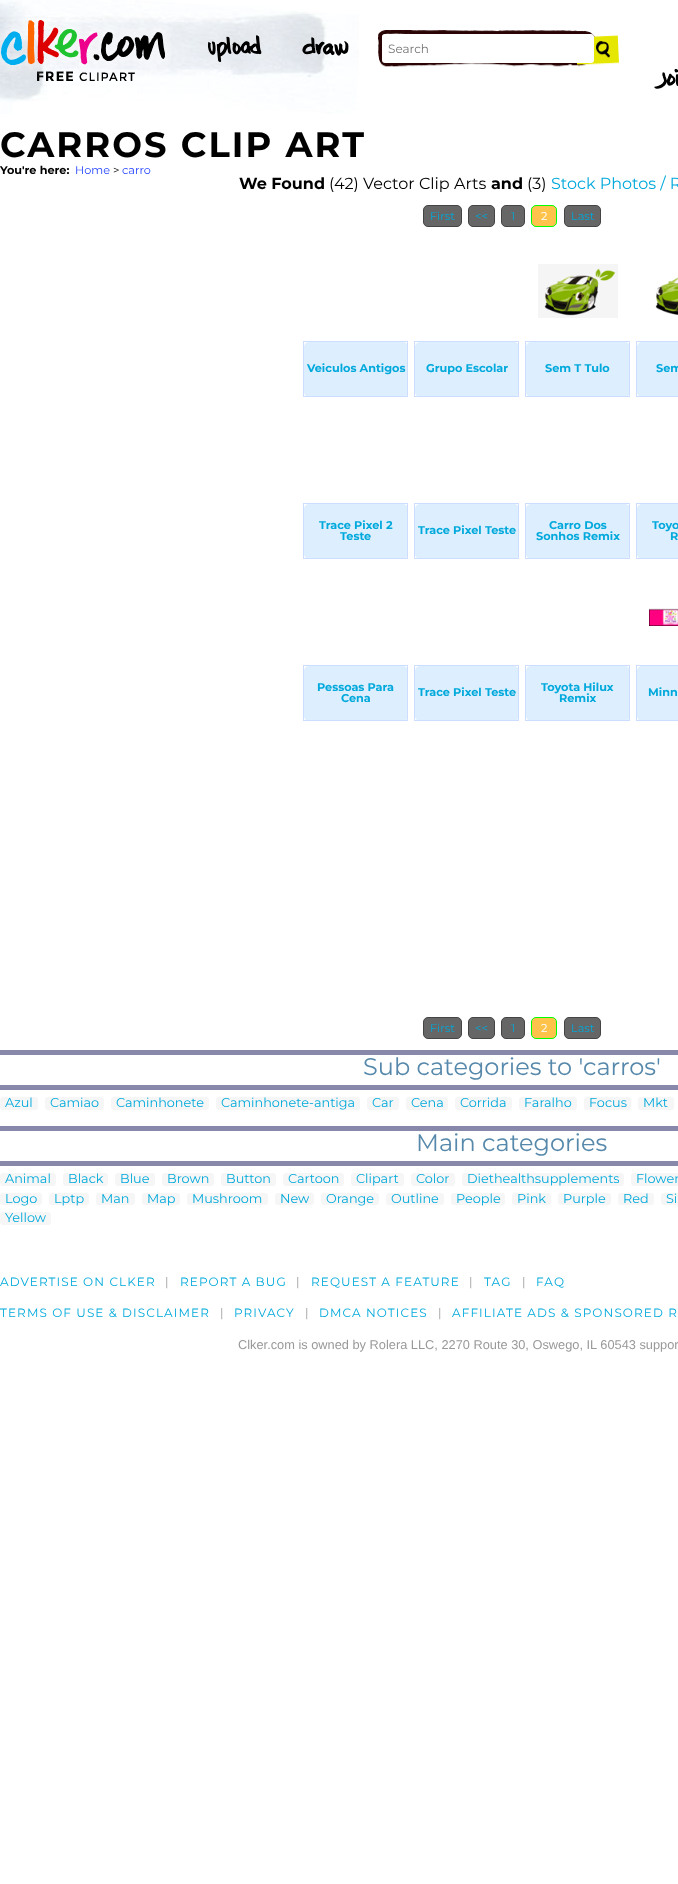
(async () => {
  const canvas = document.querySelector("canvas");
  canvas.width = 678;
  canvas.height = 1884;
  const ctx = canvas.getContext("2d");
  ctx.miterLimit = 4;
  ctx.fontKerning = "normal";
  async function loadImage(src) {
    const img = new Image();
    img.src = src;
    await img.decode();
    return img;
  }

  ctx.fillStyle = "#ffffff";
  ctx.fillRect(0, 0, 678, 1884);
  ctx.drawImage(await loadImage("img/1.png"), 0, 0, 359, 114);
  ctx.drawImage(await loadImage("img/2.png"), 0, 18, 171, 63);
  ctx.drawImage(await loadImage("img/3.png"), 208, 35, 54, 27);
  ctx.drawImage(await loadImage("img/4.png"), 302, 37, 47, 19);
  ctx.drawImage(await loadImage("img/5.png"), 378, 30, 241, 37);
  ctx.beginPath();
  ctx.roundRect(382, 34, 212, 29, 3);
  ctx.fill();
  ctx.drawImage(await loadImage("img/6.png"), 654, 69, 24, 20);
  ctx.fillStyle = "#666666";
  ctx.beginPath();
  ctx.roundRect(423.5, 205.5, 38, 21, 4.5);
  ctx.fill();
  ctx.strokeStyle = "#444444";
  ctx.stroke();
  ctx.beginPath();
  ctx.roundRect(468.5, 205.5, 26, 21, 4.5);
  ctx.fill();
  ctx.stroke();
  ctx.beginPath();
  ctx.roundRect(501.5, 205.5, 23, 21, 4.5);
  ctx.fill();
  ctx.stroke();
  ctx.fillStyle = "#ffc34c";
  ctx.beginPath();
  ctx.roundRect(531.5, 205.5, 25, 21, 4.5);
  ctx.fill();
  ctx.strokeStyle = "#00ff00";
  ctx.stroke();
  ctx.fillStyle = "#666666";
  ctx.beginPath();
  ctx.roundRect(564.5, 205.5, 36, 21, 4.5);
  ctx.fill();
  ctx.strokeStyle = "#444444";
  ctx.stroke();
  ctx.fillStyle = "#ddeeff";
  ctx.beginPath();
  ctx.roundRect(304, 342, 104, 55, 5);
  ctx.fill();
  for (const [x, y, w, h, color] of [
    [303, 341, 105, 1, "#ccddff"],
    [407, 341, 1, 56, "#ccddff"],
    [303, 396, 105, 1, "#ccddff"],
    [303, 341, 1, 56, "#ccddff"],
  ]) {
    ctx.fillStyle = color;
    ctx.fillRect(x, y, w, h);
  }
  ctx.fillStyle = "#ddeeff";
  ctx.beginPath();
  ctx.roundRect(415, 342, 104, 55, 5);
  ctx.fill();
  for (const [x, y, w, h, color] of [
    [414, 341, 105, 1, "#ccddff"],
    [518, 341, 1, 56, "#ccddff"],
    [414, 396, 105, 1, "#ccddff"],
    [414, 341, 1, 56, "#ccddff"],
  ]) {
    ctx.fillStyle = color;
    ctx.fillRect(x, y, w, h);
  }
  ctx.drawImage(await loadImage("img/7.png"), 538, 264, 80, 54);
  ctx.fillStyle = "#ddeeff";
  ctx.beginPath();
  ctx.roundRect(526, 342, 104, 55, 5);
  ctx.fill();
  for (const [x, y, w, h, color] of [
    [525, 341, 105, 1, "#ccddff"],
    [629, 341, 1, 56, "#ccddff"],
    [525, 396, 105, 1, "#ccddff"],
    [525, 341, 1, 56, "#ccddff"],
  ]) {
    ctx.fillStyle = color;
    ctx.fillRect(x, y, w, h);
  }
  ctx.drawImage(await loadImage("img/8.png"), 655, 277, 23, 39);
  ctx.fillStyle = "#ddeeff";
  ctx.beginPath();
  ctx.roundRect(637, 342, 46, 55, 5);
  ctx.fill();
  for (const [x, y, w, h, color] of [
    [636, 341, 42, 1, "#ccddff"],
    [636, 396, 42, 1, "#ccddff"],
    [636, 341, 1, 56, "#ccddff"],
  ]) {
    ctx.fillStyle = color;
    ctx.fillRect(x, y, w, h);
  }
  ctx.fillStyle = "#ddeeff";
  ctx.beginPath();
  ctx.roundRect(304, 504, 104, 55, 5);
  ctx.fill();
  for (const [x, y, w, h, color] of [
    [303, 503, 105, 1, "#ccddff"],
    [407, 503, 1, 56, "#ccddff"],
    [303, 558, 105, 1, "#ccddff"],
    [303, 503, 1, 56, "#ccddff"],
  ]) {
    ctx.fillStyle = color;
    ctx.fillRect(x, y, w, h);
  }
  ctx.fillStyle = "#ddeeff";
  ctx.beginPath();
  ctx.roundRect(415, 504, 104, 55, 5);
  ctx.fill();
  for (const [x, y, w, h, color] of [
    [414, 503, 105, 1, "#ccddff"],
    [518, 503, 1, 56, "#ccddff"],
    [414, 558, 105, 1, "#ccddff"],
    [414, 503, 1, 56, "#ccddff"],
  ]) {
    ctx.fillStyle = color;
    ctx.fillRect(x, y, w, h);
  }
  ctx.fillStyle = "#ddeeff";
  ctx.beginPath();
  ctx.roundRect(526, 504, 104, 55, 5);
  ctx.fill();
  for (const [x, y, w, h, color] of [
    [525, 503, 105, 1, "#ccddff"],
    [629, 503, 1, 56, "#ccddff"],
    [525, 558, 105, 1, "#ccddff"],
    [525, 503, 1, 56, "#ccddff"],
  ]) {
    ctx.fillStyle = color;
    ctx.fillRect(x, y, w, h);
  }
  ctx.fillStyle = "#ddeeff";
  ctx.beginPath();
  ctx.roundRect(637, 504, 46, 55, 5);
  ctx.fill();
  for (const [x, y, w, h, color] of [
    [636, 503, 42, 1, "#ccddff"],
    [636, 558, 42, 1, "#ccddff"],
    [636, 503, 1, 56, "#ccddff"],
  ]) {
    ctx.fillStyle = color;
    ctx.fillRect(x, y, w, h);
  }
  ctx.fillStyle = "#ddeeff";
  ctx.beginPath();
  ctx.roundRect(304, 666, 104, 55, 5);
  ctx.fill();
  for (const [x, y, w, h, color] of [
    [303, 665, 105, 1, "#ccddff"],
    [407, 665, 1, 56, "#ccddff"],
    [303, 720, 105, 1, "#ccddff"],
    [303, 665, 1, 56, "#ccddff"],
  ]) {
    ctx.fillStyle = color;
    ctx.fillRect(x, y, w, h);
  }
  ctx.fillStyle = "#ddeeff";
  ctx.beginPath();
  ctx.roundRect(415, 666, 104, 55, 5);
  ctx.fill();
  for (const [x, y, w, h, color] of [
    [414, 665, 105, 1, "#ccddff"],
    [518, 665, 1, 56, "#ccddff"],
    [414, 720, 105, 1, "#ccddff"],
    [414, 665, 1, 56, "#ccddff"],
  ]) {
    ctx.fillStyle = color;
    ctx.fillRect(x, y, w, h);
  }
  ctx.fillStyle = "#ddeeff";
  ctx.beginPath();
  ctx.roundRect(526, 666, 104, 55, 5);
  ctx.fill();
  for (const [x, y, w, h, color] of [
    [525, 665, 105, 1, "#ccddff"],
    [629, 665, 1, 56, "#ccddff"],
    [525, 720, 105, 1, "#ccddff"],
    [525, 665, 1, 56, "#ccddff"],
  ]) {
    ctx.fillStyle = color;
    ctx.fillRect(x, y, w, h);
  }
  ctx.drawImage(await loadImage("img/9.png"), 649, 608, 29, 18);
  ctx.fillStyle = "#ddeeff";
  ctx.beginPath();
  ctx.roundRect(637, 666, 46, 55, 5);
  ctx.fill();
  for (const [x, y, w, h, color] of [
    [636, 665, 42, 1, "#ccddff"],
    [636, 720, 42, 1, "#ccddff"],
    [636, 665, 1, 56, "#ccddff"],
  ]) {
    ctx.fillStyle = color;
    ctx.fillRect(x, y, w, h);
  }
  ctx.fillStyle = "#666666";
  ctx.beginPath();
  ctx.roundRect(423.5, 1017.5, 38, 21, 4.5);
  ctx.fill();
  ctx.stroke();
  ctx.beginPath();
  ctx.roundRect(468.5, 1017.5, 26, 21, 4.5);
  ctx.fill();
  ctx.stroke();
  ctx.beginPath();
  ctx.roundRect(501.5, 1017.5, 23, 21, 4.5);
  ctx.fill();
  ctx.stroke();
  ctx.fillStyle = "#ffc34c";
  ctx.beginPath();
  ctx.roundRect(531.5, 1017.5, 25, 21, 4.5);
  ctx.fill();
  ctx.strokeStyle = "#00ff00";
  ctx.stroke();
  ctx.fillStyle = "#666666";
  ctx.beginPath();
  ctx.roundRect(564.5, 1017.5, 36, 21, 4.5);
  ctx.fill();
  ctx.strokeStyle = "#444444";
  ctx.stroke();
  ctx.fillStyle = "#8888aa";
  ctx.fillRect(0, 1050, 678, 5);
  ctx.fillRect(0, 1085, 678, 5);
  ctx.fillStyle = "#f6f6f6";
  ctx.beginPath();
  ctx.roundRect(0, 1097, 38, 13, 3);
  ctx.fill();
  ctx.beginPath();
  ctx.roundRect(45, 1097, 59, 13, 3);
  ctx.fill();
  ctx.beginPath();
  ctx.roundRect(111, 1097, 98, 13, 3);
  ctx.fill();
  ctx.beginPath();
  ctx.roundRect(216, 1097, 144, 13, 3);
  ctx.fill();
  ctx.beginPath();
  ctx.roundRect(367, 1097, 32, 13, 3);
  ctx.fill();
  ctx.beginPath();
  ctx.roundRect(406, 1097, 42, 13, 3);
  ctx.fill();
  ctx.beginPath();
  ctx.roundRect(455, 1097, 57, 13, 3);
  ctx.fill();
  ctx.beginPath();
  ctx.roundRect(519, 1097, 58, 13, 3);
  ctx.fill();
  ctx.beginPath();
  ctx.roundRect(584, 1097, 47, 13, 3);
  ctx.fill();
  ctx.beginPath();
  ctx.roundRect(638, 1097, 36, 13, 3);
  ctx.fill();
  ctx.fillStyle = "#8888aa";
  ctx.fillRect(0, 1126, 678, 5);
  ctx.fillRect(0, 1161, 678, 5);
  ctx.fillStyle = "#f6f6f6";
  ctx.beginPath();
  ctx.roundRect(0, 1173, 56, 13, 3);
  ctx.fill();
  ctx.beginPath();
  ctx.roundRect(63, 1173, 45, 13, 3);
  ctx.fill();
  ctx.beginPath();
  ctx.roundRect(115, 1173, 40, 13, 3);
  ctx.fill();
  ctx.beginPath();
  ctx.roundRect(162, 1173, 52, 13, 3);
  ctx.fill();
  ctx.beginPath();
  ctx.roundRect(221, 1173, 55, 13, 3);
  ctx.fill();
  ctx.beginPath();
  ctx.roundRect(283, 1173, 61, 13, 3);
  ctx.fill();
  ctx.beginPath();
  ctx.roundRect(351, 1173, 53, 13, 3);
  ctx.fill();
  ctx.beginPath();
  ctx.roundRect(411, 1173, 44, 13, 3);
  ctx.fill();
  ctx.beginPath();
  ctx.roundRect(462, 1173, 162, 13, 3);
  ctx.fill();
  ctx.beginPath();
  ctx.roundRect(631, 1173, 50, 13, 3);
  ctx.fill();
  ctx.beginPath();
  ctx.roundRect(0, 1193, 42, 12, 3);
  ctx.fill();
  ctx.beginPath();
  ctx.roundRect(49, 1193, 40, 12, 3);
  ctx.fill();
  ctx.beginPath();
  ctx.roundRect(96, 1193, 39, 12, 3);
  ctx.fill();
  ctx.beginPath();
  ctx.roundRect(142, 1193, 38, 12, 3);
  ctx.fill();
  ctx.beginPath();
  ctx.roundRect(187, 1193, 81, 12, 3);
  ctx.fill();
  ctx.beginPath();
  ctx.roundRect(275, 1193, 39, 12, 3);
  ctx.fill();
  ctx.beginPath();
  ctx.roundRect(321, 1193, 58, 12, 3);
  ctx.fill();
  ctx.beginPath();
  ctx.roundRect(386, 1193, 58, 12, 3);
  ctx.fill();
  ctx.beginPath();
  ctx.roundRect(451, 1193, 54, 12, 3);
  ctx.fill();
  ctx.beginPath();
  ctx.roundRect(512, 1193, 39, 12, 3);
  ctx.fill();
  ctx.beginPath();
  ctx.roundRect(558, 1193, 53, 12, 3);
  ctx.fill();
  ctx.beginPath();
  ctx.roundRect(618, 1193, 36, 12, 3);
  ctx.fill();
  ctx.beginPath();
  ctx.roundRect(661, 1193, 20, 12, 3);
  ctx.fill();
  ctx.beginPath();
  ctx.roundRect(0, 1212, 51, 13, 3);
  ctx.fill();
  ctx.font = "12px Montserrat";
  ctx.fillStyle = "#757575";
  ctx.fillText("Search", 388, 53);
  ctx.letterSpacing = "2.1px";
  ctx.font = "bold 35.25px Montserrat";
  ctx.fillStyle = "#000000";
  ctx.fillText("CARROS CLIP ART", 0, 157);
  ctx.letterSpacing = "0px";
  ctx.font = "bold 11.25px Montserrat";
  ctx.fillText("You're here:", 0, 174);
  ctx.font = "11.25px Montserrat";
  ctx.fillStyle = "#2040ff";
  ctx.fillText("Home", 75, 174);
  ctx.fillStyle = "#000000";
  ctx.fillText(">", 113, 174);
  ctx.fillStyle = "#2040ff";
  ctx.fillText("carro", 122, 174);
  ctx.font = "bold 16px Montserrat";
  ctx.fillStyle = "#000000";
  ctx.fillText("We Found", 239, 189);
  ctx.font = "16px Montserrat";
  ctx.fillText("(42) Vector Clip Arts", 329, 189);
  ctx.font = "bold 16px Montserrat";
  ctx.fillText("and", 491, 189);
  ctx.font = "16px Montserrat";
  ctx.fillText("(3)", 527, 189);
  ctx.fillStyle = "#00a9db";
  ctx.fillText("Stock Photos / R", 551, 189);
  ctx.font = "11.25px Montserrat";
  for (const [text, x, y] of [
    ["First", 430, 220],
    ["<<", 475, 220],
    ["1", 511, 220],
  ]) {
    ctx.fillText(text, x, y);
  }
  ctx.fillStyle = "#ffffff";
  ctx.fillText("2", 541, 220);
  ctx.fillStyle = "#00a9db";
  ctx.fillText("Last", 571, 220);
  ctx.font = "bold 11.25px Montserrat";
  for (const [text, x, y] of [
    ["Veiculos Antigos", 307, 372],
    ["Grupo Escolar", 426, 372],
    ["Sem T Tulo", 545, 372],
    ["Sem", 656, 372],
    ["Trace Pixel 2", 319, 529],
    ["Teste", 340, 540],
    ["Trace Pixel Teste", 418, 534],
    ["Carro Dos", 549, 529],
    ["Sonhos Remix", 536, 540],
    ["Toyo", 652, 529],
    ["R", 670, 540],
    ["Pessoas Para", 317, 691],
    ["Cena", 341, 702],
    ["Trace Pixel Teste", 418, 696],
    ["Toyota Hilux", 541, 691],
    ["Remix", 559, 702],
    ["Minn", 648, 696],
  ]) {
    ctx.fillText(text, x, y);
  }
  ctx.font = "11.25px Montserrat";
  for (const [text, x, y] of [
    ["First", 430, 1032],
    ["<<", 475, 1032],
    ["1", 511, 1032],
  ]) {
    ctx.fillText(text, x, y);
  }
  ctx.fillStyle = "#ffffff";
  ctx.fillText("2", 541, 1032);
  ctx.fillStyle = "#00a9db";
  ctx.fillText("Last", 571, 1032);
  ctx.font = "24px Montserrat";
  ctx.fillStyle = "#5588aa";
  ctx.fillText("Sub categories to 'carros'", 363, 1075);
  ctx.font = "12.8px Montserrat";
  ctx.fillStyle = "#00a9db";
  for (const [text, x, y] of [
    ["Azul", 5, 1107],
    ["Camiao", 50, 1107],
    ["Caminhonete", 116, 1107],
    ["Caminhonete-antiga", 221, 1107],
    ["Car", 372, 1107],
    ["Cena", 411, 1107],
    ["Corrida", 460, 1107],
    ["Faralho", 524, 1107],
    ["Focus", 589, 1107],
    ["Mkt", 643, 1107],
  ]) {
    ctx.fillText(text, x, y);
  }
  ctx.font = "24px Montserrat";
  ctx.fillStyle = "#5588aa";
  ctx.fillText("Main categories", 416, 1151);
  ctx.font = "12.8px Montserrat";
  ctx.fillStyle = "#00a9db";
  for (const [text, x, y] of [
    ["Animal", 5, 1183],
    ["Black", 68, 1183],
    ["Blue", 120, 1183],
    ["Brown", 167, 1183],
    ["Button", 226, 1183],
    ["Cartoon", 288, 1183],
    ["Clipart", 356, 1183],
    ["Color", 416, 1183],
    ["Diethealthsupplements", 467, 1183],
    ["Flower", 636, 1183],
    ["Logo", 5, 1203],
    ["Lptp", 54, 1203],
    ["Man", 101, 1203],
    ["Map", 147, 1203],
    ["Mushroom", 192, 1203],
    ["New", 280, 1203],
    ["Orange", 326, 1203],
    ["Outline", 391, 1203],
    ["People", 456, 1203],
    ["Pink", 517, 1203],
    ["Purple", 563, 1203],
    ["Red", 623, 1203],
    ["Si", 666, 1203],
    ["Yellow", 5, 1222],
  ]) {
    ctx.fillText(text, x, y);
  }
  ctx.letterSpacing = "1.1px";
  ctx.font = "12px Montserrat";
  ctx.fillText("ADVERTISE ON CLKER", 0, 1286);
  ctx.fillStyle = "#999999";
  ctx.fillText("|", 165, 1286);
  ctx.fillStyle = "#00a9db";
  ctx.fillText("REPORT A BUG", 180, 1286);
  ctx.fillStyle = "#999999";
  ctx.fillText("|", 296, 1286);
  ctx.fillStyle = "#00a9db";
  ctx.fillText("REQUEST A FEATURE", 311, 1286);
  ctx.fillStyle = "#999999";
  ctx.fillText("|", 469, 1286);
  ctx.fillStyle = "#00a9db";
  ctx.fillText("TAG", 484, 1286);
  ctx.fillStyle = "#999999";
  ctx.fillText("|", 522, 1286);
  ctx.fillStyle = "#00a9db";
  ctx.fillText("FAQ", 536, 1286);
  ctx.fillText("TERMS OF USE & DISCLAIMER", 0, 1317);
  ctx.fillStyle = "#999999";
  ctx.fillText("|", 220, 1317);
  ctx.fillStyle = "#00a9db";
  ctx.fillText("PRIVACY", 234, 1317);
  ctx.fillStyle = "#999999";
  ctx.fillText("|", 305, 1317);
  ctx.fillStyle = "#00a9db";
  ctx.fillText("DMCA NOTICES", 319, 1317);
  ctx.fillStyle = "#999999";
  ctx.fillText("|", 438, 1317);
  ctx.fillStyle = "#00a9db";
  ctx.fillText("AFFILIATE ADS & SPONSORED R", 452, 1317);
  ctx.letterSpacing = "0px";
  ctx.font = "12.8px Liberation Sans";
  ctx.fillStyle = "#999999";
  ctx.fillText("Clker.com is owned by Rolera LLC, 2270 Route 30, Oswego, IL 60543 suppor", 238, 1349);
})();
